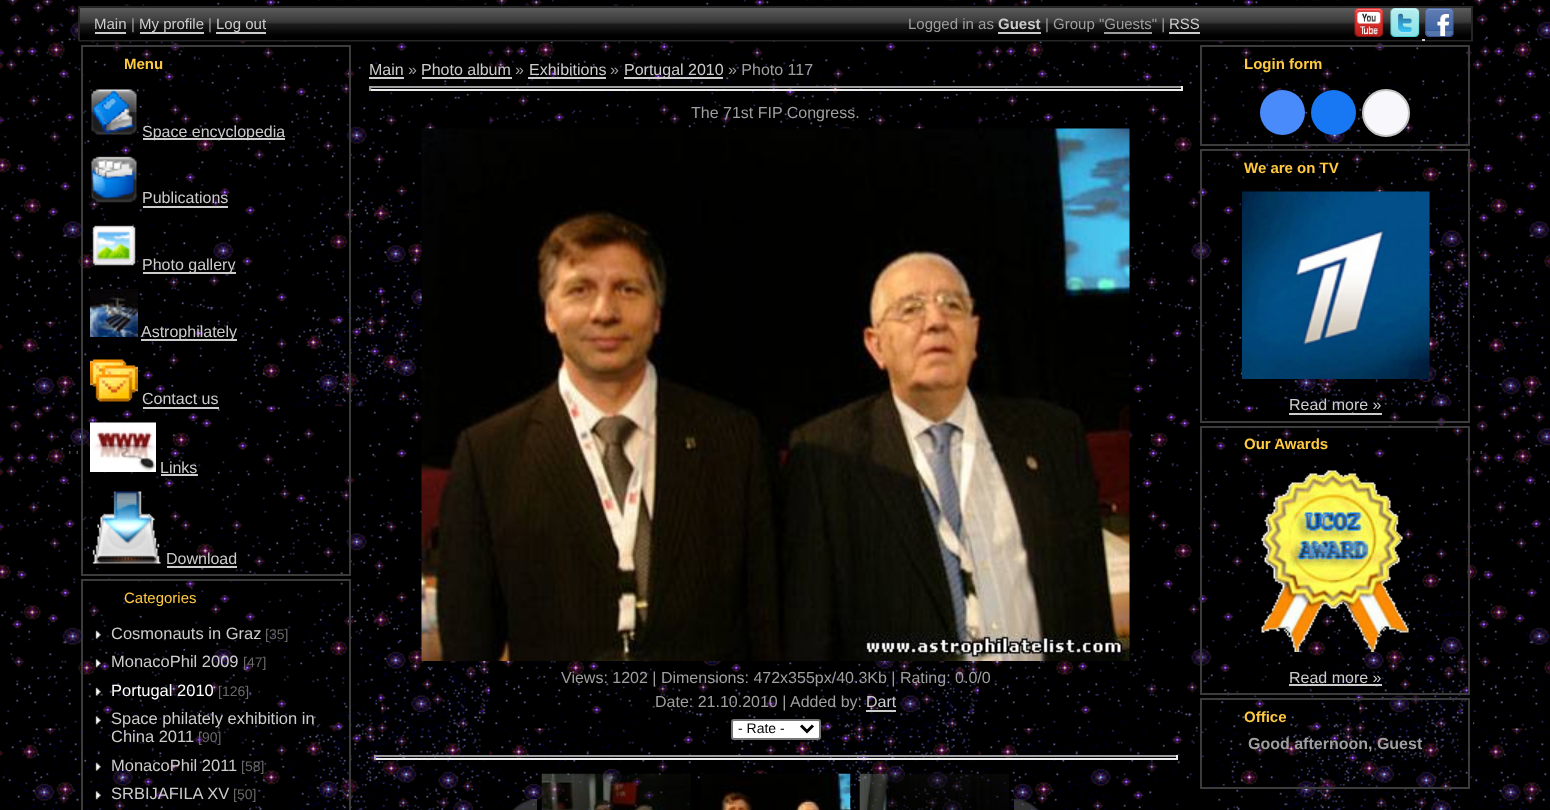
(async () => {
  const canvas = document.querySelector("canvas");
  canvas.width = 1550;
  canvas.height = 810;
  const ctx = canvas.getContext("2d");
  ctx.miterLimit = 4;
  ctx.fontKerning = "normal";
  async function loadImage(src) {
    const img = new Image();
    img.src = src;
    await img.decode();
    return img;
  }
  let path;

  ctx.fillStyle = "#ffffff";
  ctx.fillRect(0, 0, 1550, 810);
  ctx.drawImage(await loadImage("img/1.png"), 0, 0, 1550, 810);
  ctx.drawImage(await loadImage("img/2.png"), 0, 0, 78, 810);
  ctx.drawImage(await loadImage("img/3.png"), 69, 451, 9, 3);
  ctx.drawImage(await loadImage("img/4.png"), 78, 5, 1395, 35);
  ctx.strokeStyle = "#262626";
  ctx.lineWidth = 2;
  ctx.strokeRect(79, 7, 1393, 34);
  for (const [x, y, w, h, color] of [
    [95, 32, 31, 2, "#cccccc"],
    [140, 32, 64, 2, "#cccccc"],
    [216, 32, 50, 2, "#cccccc"],
    [998, 32, 43, 2, "#cccccc"],
    [1169, 32, 31, 2, "#cccccc"],
    [1104, 32, 48, 2, "#9f9f9f"],
  ]) {
    ctx.fillStyle = color;
    ctx.fillRect(x, y, w, h);
  }
  ctx.drawImage(await loadImage("img/5.png"), 1354, 8, 30, 29);
  ctx.drawImage(await loadImage("img/6.png"), 1390, 8, 30, 29);
  ctx.drawImage(await loadImage("img/7.png"), 1425, 8, 29, 29);
  ctx.fillStyle = "#cccccc";
  ctx.fillRect(1422, 39, 3, 2);
  ctx.drawImage(await loadImage("img/8.png"), 78, 41, 1395, 769);
  ctx.strokeStyle = "#3c3c3c";
  ctx.strokeRect(82, 46, 268, 529);
  ctx.drawImage(await loadImage("img/9.png"), 90, 89, 48, 46);
  ctx.fillRect(143, 138, 142, 2);
  ctx.drawImage(await loadImage("img/10.png"), 90, 156, 48, 47);
  ctx.fillRect(143, 206, 85, 2);
  ctx.drawImage(await loadImage("img/11.png"), 92, 225, 44, 41);
  ctx.fillRect(143, 272, 93, 2);
  ctx.drawImage(await loadImage("img/12.png"), 90, 289, 48, 48);
  ctx.fillRect(141, 339, 96, 2);
  ctx.drawImage(await loadImage("img/13.png"), 90, 356, 48, 49);
  ctx.fillRect(143, 407, 76, 2);
  ctx.drawImage(await loadImage("img/14.png"), 90, 422, 66, 50);
  ctx.fillRect(161, 474, 37, 2);
  ctx.drawImage(await loadImage("img/15.png"), 92, 491, 69, 73);
  ctx.fillRect(167, 566, 70, 2);
  ctx.strokeRect(82, 580, 268, 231);
  ctx.drawImage(await loadImage("img/16.png"), 95, 630, 6, 9);
  ctx.drawImage(await loadImage("img/17.png"), 95, 659, 6, 9);
  ctx.drawImage(await loadImage("img/18.png"), 95, 687, 6, 9);
  ctx.drawImage(await loadImage("img/19.png"), 95, 716, 6, 9);
  ctx.drawImage(await loadImage("img/16.png"), 95, 762, 6, 9);
  ctx.drawImage(await loadImage("img/20.png"), 95, 791, 6, 9);
  ctx.drawImage(await loadImage("img/21.png"), 355, 809, 797, 1);
  for (const [x, y, w, h, color] of [
    [369, 77, 35, 2, "#cccccc"],
    [422, 77, 90, 2, "#cccccc"],
    [528, 77, 78, 2, "#cccccc"],
    [624, 77, 99, 2, "#cccccc"],
    [369, 86, 813, 2, "#9f9f9f"],
    [1181, 86, 2, 5, "#eeeeee"],
    [369, 89, 813, 2, "#eeeeee"],
    [369, 86, 2, 5, "#9f9f9f"],
  ]) {
    ctx.fillStyle = color;
    ctx.fillRect(x, y, w, h);
  }
  ctx.drawImage(await loadImage("img/22.png"), 421, 128, 709, 533);
  ctx.fillStyle = "#cccccc";
  ctx.fillRect(866, 710, 30, 2);
  ctx.fillStyle = "#ffffff";
  ctx.beginPath();
  ctx.roundRect(732, 720, 88, 19, 2);
  ctx.fill();
  ctx.strokeStyle = "#767676";
  ctx.stroke();
  path = new Path2D("M801 725.5L807 731.5L813 725.5");
  ctx.strokeStyle = "#000000";
  ctx.lineWidth = 3;
  ctx.stroke(path);
  for (const [x, y, w, h, color] of [
    [374, 755, 804, 2, "#9f9f9f"],
    [1176, 755, 2, 5, "#eeeeee"],
    [374, 758, 804, 2, "#eeeeee"],
    [374, 755, 2, 5, "#9f9f9f"],
  ]) {
    ctx.fillStyle = color;
    ctx.fillRect(x, y, w, h);
  }
  ctx.drawImage(await loadImage("img/23.png"), 512, 799, 25, 11);
  ctx.drawImage(await loadImage("img/24.png"), 541, 773, 150, 37);
  ctx.drawImage(await loadImage("img/25.png"), 700, 773, 151, 37);
  ctx.drawImage(await loadImage("img/26.png"), 859, 773, 150, 37);
  ctx.drawImage(await loadImage("img/27.png"), 1014, 799, 25, 11);
  ctx.strokeStyle = "#3c3c3c";
  ctx.lineWidth = 2;
  ctx.strokeRect(1201, 46, 268, 99);
  ctx.fillStyle = "#498bfa";
  ctx.beginPath();
  ctx.arc(1282.5, 112.5, 22.5, 0, Math.PI * 2);
  ctx.fill();
  ctx.fillStyle = "#1877f2";
  ctx.beginPath();
  ctx.arc(1333.5, 112.5, 22.5, 0, Math.PI * 2);
  ctx.fill();
  ctx.fillStyle = "#f8f8fc";
  ctx.beginPath();
  ctx.arc(1386, 113, 23, 0, Math.PI * 2);
  ctx.fill();
  ctx.strokeStyle = "#c4c4c4";
  ctx.stroke();
  ctx.strokeStyle = "#3c3c3c";
  ctx.strokeRect(1201, 150, 268, 272);
  ctx.drawImage(await loadImage("img/28.png"), 1242, 191, 188, 188);
  ctx.fillStyle = "#cccccc";
  ctx.fillRect(1289, 413, 93, 2);
  ctx.strokeRect(1201, 427, 268, 267);
  ctx.drawImage(await loadImage("img/29.png"), 1261, 470, 148, 182);
  ctx.fillRect(1289, 684, 93, 2);
  ctx.strokeRect(1201, 699, 268, 89);
  ctx.drawImage(await loadImage("img/30.png"), 1473, 0, 77, 810);
  ctx.drawImage(await loadImage("img/31.png"), 1473, 451, 9, 3);
  ctx.font = "15px Liberation Sans";
  ctx.fillText("Main", 94, 29);
  ctx.fillStyle = "#9f9f9f";
  ctx.fillText("|", 131, 29);
  ctx.fillStyle = "#cccccc";
  ctx.fillText("My profile", 139, 29);
  ctx.fillStyle = "#9f9f9f";
  ctx.fillText("|", 208, 29);
  ctx.fillStyle = "#cccccc";
  ctx.fillText("Log out", 216, 29);
  ctx.fillStyle = "#9f9f9f";
  ctx.fillText("Logged in as", 908, 29);
  ctx.font = "bold 15px Liberation Sans";
  ctx.fillStyle = "#cccccc";
  ctx.fillText("Guest", 998, 29);
  ctx.font = "15px Liberation Sans";
  ctx.fillStyle = "#9f9f9f";
  ctx.fillText("| Group \"Guests\" |", 1045, 29);
  ctx.fillStyle = "#cccccc";
  ctx.fillText("RSS", 1169, 29);
  ctx.font = "bold 15px Liberation Sans";
  ctx.fillStyle = "#ffca42";
  ctx.fillText("Menu", 124, 69);
  ctx.font = "16px Liberation Sans";
  ctx.fillStyle = "#cccccc";
  for (const [text, x, y] of [
    ["Space encyclopedia", 142, 137],
    ["Publications", 142, 203],
    ["Photo gallery", 142, 270],
    ["Astrophilately", 141, 337],
    ["Contact us", 142, 404],
    ["Links", 160, 473],
    ["Download", 166, 564],
  ]) {
    ctx.fillText(text, x, y);
  }
  ctx.font = "15px Liberation Sans";
  ctx.fillStyle = "#ffca42";
  ctx.fillText("Categories", 124, 603);
  ctx.font = "16.5px Liberation Sans";
  ctx.fillStyle = "#cccccc";
  ctx.fillText("Cosmonauts in Graz", 111, 639);
  ctx.font = "14px Liberation Sans";
  ctx.fillStyle = "#696969";
  ctx.fillText("[35]", 265, 639);
  ctx.font = "16.5px Liberation Sans";
  ctx.fillStyle = "#cccccc";
  ctx.fillText("MonacoPhil 2009", 111, 667);
  ctx.font = "14px Liberation Sans";
  ctx.fillStyle = "#696969";
  ctx.fillText("[47]", 243, 667);
  ctx.font = "16.5px Liberation Sans";
  ctx.fillStyle = "#ffffff";
  ctx.fillText("Portugal 2010", 111, 696);
  ctx.font = "14px Liberation Sans";
  ctx.fillStyle = "#696969";
  ctx.fillText("[126]", 218, 696);
  ctx.font = "16.5px Liberation Sans";
  ctx.fillStyle = "#cccccc";
  ctx.fillText("Space philately exhibition in", 111, 724);
  ctx.fillText("China 2011", 111, 742);
  ctx.font = "14px Liberation Sans";
  ctx.fillStyle = "#696969";
  ctx.fillText("[90]", 198, 742);
  ctx.font = "16.5px Liberation Sans";
  ctx.fillStyle = "#cccccc";
  ctx.fillText("MonacoPhil 2011", 111, 771);
  ctx.font = "14px Liberation Sans";
  ctx.fillStyle = "#696969";
  ctx.fillText("[58]", 241, 771);
  ctx.font = "16.5px Liberation Sans";
  ctx.fillStyle = "#cccccc";
  ctx.fillText("SRBIJAFILA XV", 111, 799);
  ctx.font = "14px Liberation Sans";
  ctx.fillStyle = "#696969";
  ctx.fillText("[50]", 233, 799);
  ctx.font = "16px Liberation Sans";
  ctx.fillStyle = "#cccccc";
  ctx.fillText("Main", 369, 75);
  ctx.fillStyle = "#9f9f9f";
  ctx.fillText("»", 408, 75);
  ctx.fillStyle = "#cccccc";
  ctx.fillText("Photo album", 421, 75);
  ctx.fillStyle = "#9f9f9f";
  ctx.fillText("»", 515, 75);
  ctx.fillStyle = "#cccccc";
  ctx.fillText("Exhibitions", 529, 75);
  ctx.fillStyle = "#9f9f9f";
  ctx.fillText("»", 610, 75);
  ctx.fillStyle = "#cccccc";
  ctx.fillText("Portugal 2010", 624, 75);
  ctx.fillStyle = "#9f9f9f";
  for (const [text, x, y] of [
    ["» Photo 117", 728, 75],
    ["The 71st FIP Congress.", 691, 118],
    ["Views: 1202 | Dimensions: 472x355px/40.3Kb | Rating: 0.0/0", 561, 683],
    ["Date: 21.10.2010 |", 655, 707],
    ["Added by:", 790, 707],
  ]) {
    ctx.fillText(text, x, y);
  }
  ctx.fillStyle = "#cccccc";
  ctx.fillText("Dart", 866, 707);
  ctx.font = "14px Liberation Sans";
  ctx.fillStyle = "#000000";
  ctx.fillText("- Rate -", 738, 733);
  ctx.font = "bold 15px Liberation Sans";
  ctx.fillStyle = "#ffca42";
  ctx.fillText("Login form", 1244, 69);
  ctx.fillText("We are on TV", 1244, 173);
  ctx.font = "16px Liberation Sans";
  ctx.fillStyle = "#cccccc";
  ctx.fillText("Read more »", 1289, 410);
  ctx.font = "bold 15px Liberation Sans";
  ctx.fillStyle = "#ffca42";
  ctx.fillText("Our Awards", 1244, 449);
  ctx.font = "16px Liberation Sans";
  ctx.fillStyle = "#cccccc";
  ctx.fillText("Read more »", 1289, 683);
  ctx.font = "bold 15px Liberation Sans";
  ctx.fillStyle = "#ffca42";
  ctx.fillText("Office", 1244, 722);
  ctx.font = "bold 16px Liberation Sans";
  ctx.fillStyle = "#9f9f9f";
  ctx.fillText("Good afternoon, Guest", 1248, 749);
})();
